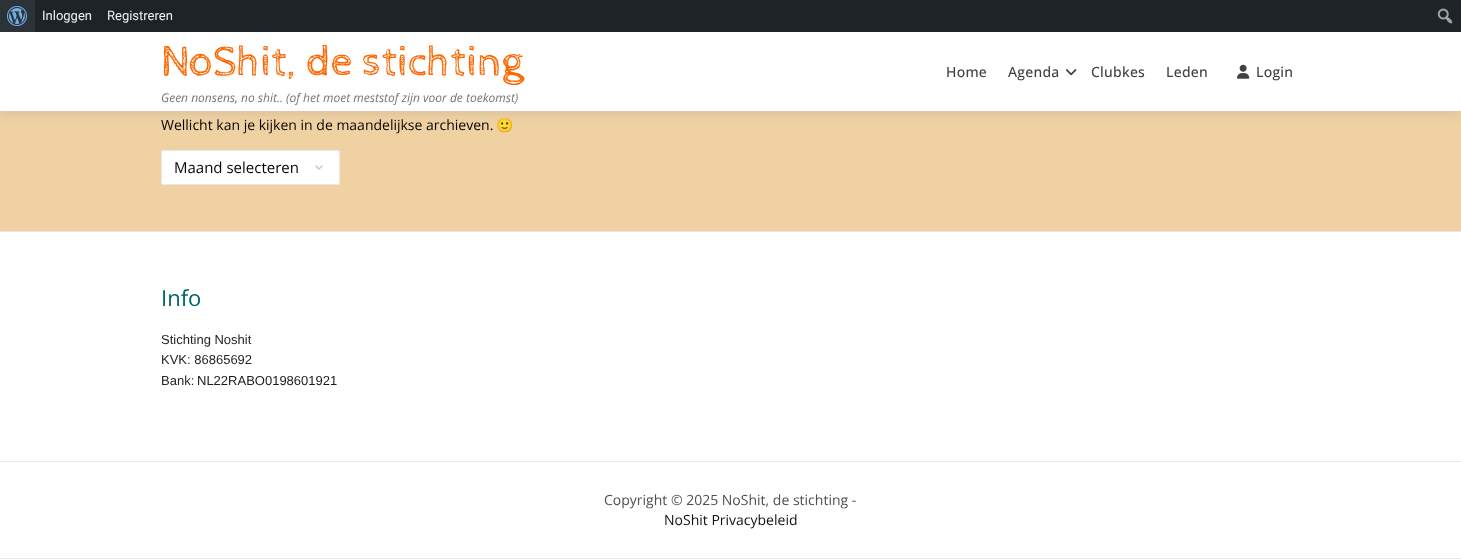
(async () => {
  const canvas = document.querySelector("canvas");
  canvas.width = 1461;
  canvas.height = 559;
  const ctx = canvas.getContext("2d");
  ctx.miterLimit = 4;
  ctx.fontKerning = "normal";
  async function loadImage(src) {
    const img = new Image();
    img.src = src;
    await img.decode();
    return img;
  }
  let path;

  ctx.fillStyle = "#f0d1a2";
  ctx.fillRect(0, 0, 1461, 559);
  ctx.fillStyle = "rgba(132, 132, 132, 0.15)";
  ctx.filter = "blur(5px)";
  ctx.beginPath();
  ctx.rect(0, 37, 1461, 79);
  ctx.fill();
  ctx.filter = "none";
  ctx.fillStyle = "#1d2327";
  ctx.fillRect(35, 0, 1426, 32);
  ctx.fillStyle = "#2c3338";
  ctx.fillRect(0, 0, 35, 32);
  ctx.drawImage(await loadImage("img/1.png"), 7, 6, 20, 20);
  ctx.drawImage(await loadImage("img/2.png"), 1437, 8, 16, 16);
  ctx.fillStyle = "#ffffff";
  ctx.fillRect(0, 32, 1461, 79);
  ctx.drawImage(await loadImage("img/3.png"), 1066, 69, 11, 7);
  ctx.drawImage(await loadImage("img/4.png"), 1237, 64, 13, 15);
  ctx.beginPath();
  ctx.roundRect(161, 150, 179, 35, 3);
  ctx.fill();
  path = new Path2D("M322 166L319 169L316 166");
  ctx.strokeStyle = "#c4cad1";
  ctx.lineWidth = 1.5;
  ctx.lineCap = "round";
  ctx.lineJoin = "round";
  ctx.stroke(path);
  ctx.beginPath();
  ctx.roundRect(161.5, 150.5, 178, 34, 2.5);
  ctx.strokeStyle = "#e8e8e8";
  ctx.lineWidth = 1;
  ctx.lineJoin = "miter";
  ctx.stroke();
  for (const [x, y, w, h, color] of [
    [0, 232, 1461, 326, "#ffffff"],
    [0, 231, 1461, 1, "#e8e8e8"],
    [0, 461, 1461, 1, "#e8e8e8"],
    [0, 558, 1461, 1, "#e8e8e8"],
  ]) {
    ctx.fillStyle = color;
    ctx.fillRect(x, y, w, h);
  }
  ctx.font = "13px Roboto";
  ctx.fillStyle = "#f0f0f1";
  ctx.fillText("Inloggen", 42, 20);
  ctx.fillText("Registreren", 107, 20);
  ctx.font = "43px Cabin Sketch";
  ctx.fillStyle = "#ff6600";
  ctx.fillText("NoShit, de stichting", 161, 75);
  ctx.font = "italic 12px Open Sans";
  ctx.fillStyle = "#757575";
  ctx.fillText("Geen nonsens, no shit.. (of het moet meststof zijn voor de toekomst)", 161, 102);
  ctx.letterSpacing = "0.25px";
  ctx.font = "500 14px Open Sans";
  ctx.fillStyle = "#414141";
  for (const [text, x, y] of [
    ["Home", 946, 77],
    ["Agenda", 1008, 77],
    ["Clubkes", 1091, 77],
    ["Leden", 1166, 77],
    ["Login", 1256, 77],
  ]) {
    ctx.fillText(text, x, y);
  }
  ctx.letterSpacing = "0px";
  ctx.font = "14px Open Sans";
  ctx.fillStyle = "#040404";
  ctx.fillText("Wellicht kan je kijken in de maandelijkse archieven.", 161, 130);
  ctx.font = "14px Noto Color Emoji";
  ctx.fillText("🙂", 496, 130);
  ctx.font = "15px Open Sans";
  ctx.fillText("Maand selecteren", 174, 173);
  ctx.font = "22px Open Sans";
  ctx.fillStyle = "#006566";
  ctx.fillText("Info", 161, 306);
  ctx.font = "13px Liberation Sans";
  ctx.fillStyle = "#262626";
  for (const [text, x, y] of [
    ["Stichting Noshit", 161, 344],
    ["KVK: 86865692", 161, 364],
    ["Bank:", 161, 385],
  ]) {
    ctx.fillText(text, x, y);
  }
  ctx.fillStyle = "#1b1b1b";
  ctx.fillText("NL22RABO0198601921", 197, 385);
  ctx.font = "14px Open Sans";
  ctx.fillStyle = "#505050";
  ctx.fillText("Copyright © 2025 NoShit, de stichting -", 604, 505);
  ctx.fillStyle = "#111111";
  ctx.fillText("NoShit Privacybeleid", 664, 525);
})();
